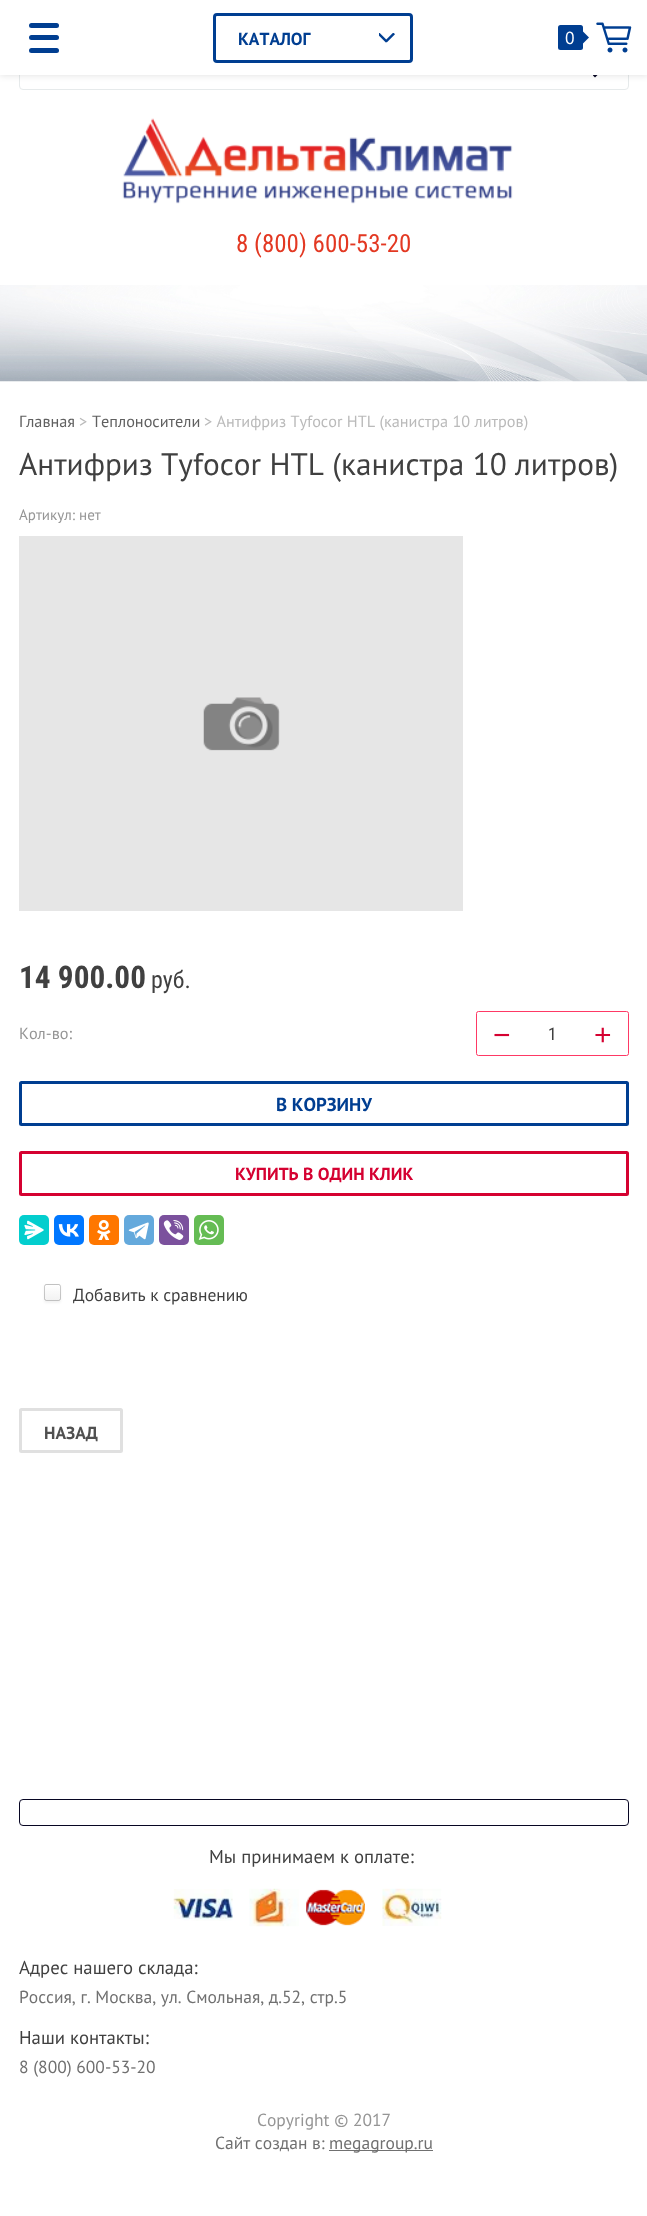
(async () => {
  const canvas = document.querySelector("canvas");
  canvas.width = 647;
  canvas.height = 2216;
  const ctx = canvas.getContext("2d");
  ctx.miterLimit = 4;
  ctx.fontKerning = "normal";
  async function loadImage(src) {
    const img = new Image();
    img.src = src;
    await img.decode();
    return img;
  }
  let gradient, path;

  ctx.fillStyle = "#ffffff";
  ctx.fillRect(0, 0, 647, 2216);
  ctx.beginPath();
  ctx.roundRect(19.5, 40.5, 609, 49, 3.5);
  ctx.strokeStyle = "#e6eaeb";
  ctx.stroke();
  ctx.drawImage(await loadImage("img/3.png"), 593, 75, 5, 3);
  ctx.fillStyle = "rgba(0, 0, 0, 0.1)";
  ctx.filter = "blur(3px)";
  ctx.beginPath();
  ctx.rect(0, 1, 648, 75);
  ctx.fill();
  ctx.filter = "none";
  ctx.fillStyle = "#ffffff";
  ctx.fillRect(0, 0, 647, 75);
  ctx.fillStyle = "#003e91";
  ctx.beginPath();
  ctx.roundRect(29, 23, 30, 5, 2.5);
  ctx.fill();
  ctx.beginPath();
  ctx.roundRect(29, 35, 30, 5, 2.5);
  ctx.fill();
  ctx.beginPath();
  ctx.roundRect(29, 48, 30, 5, 2.5);
  ctx.fill();
  ctx.beginPath();
  ctx.roundRect(214.5, 14.5, 197, 47, 2.5);
  ctx.strokeStyle = "#003e91";
  ctx.lineWidth = 3;
  ctx.stroke();
  ctx.drawImage(await loadImage("img/1.png"), 379, 33, 16, 10);
  ctx.beginPath();
  ctx.roundRect(558, 25, 25, 25, 2.5);
  ctx.fill();
  path = new Path2D("M582.5 44V31L589 37.5Z");
  ctx.fill(path);
  ctx.drawImage(await loadImage("img/2.png"), 596, 22, 36, 31);
  ctx.drawImage(await loadImage("img/4.png"), 122, 118, 391, 86);
  ctx.drawImage(await loadImage("img/5.png"), 0, 285, 647, 97);
  ctx.fillStyle = "#e6e6e6";
  ctx.fillRect(19, 536, 444, 375);
  ctx.drawImage(await loadImage("img/6.png"), 203, 697, 77, 54);
  ctx.beginPath();
  ctx.roundRect(476.5, 1011.5, 152, 44, 2);
  ctx.strokeStyle = "#fe3965";
  ctx.lineWidth = 1;
  ctx.stroke();
  ctx.beginPath();
  ctx.roundRect(20.5, 1082.5, 607, 42, 1);
  ctx.strokeStyle = "#003e91";
  ctx.lineWidth = 3;
  ctx.stroke();
  ctx.beginPath();
  ctx.roundRect(20.5, 1152.5, 607, 42, 1);
  ctx.strokeStyle = "#d50131";
  ctx.stroke();
  ctx.fillStyle = "#03cece";
  ctx.beginPath();
  ctx.roundRect(19, 1215, 30, 30, 5);
  ctx.fill();
  ctx.drawImage(await loadImage("img/7.png"), 24, 1220, 20, 20);
  ctx.fillStyle = "#0077ff";
  ctx.beginPath();
  ctx.roundRect(54, 1215, 30, 30, 5);
  ctx.fill();
  ctx.drawImage(await loadImage("img/8.png"), 58, 1224, 21, 13);
  ctx.fillStyle = "#ff7700";
  ctx.beginPath();
  ctx.roundRect(89, 1215, 30, 30, 5);
  ctx.fill();
  ctx.drawImage(await loadImage("img/9.png"), 97, 1220, 14, 20);
  ctx.fillStyle = "#64a9dc";
  ctx.beginPath();
  ctx.roundRect(124, 1215, 30, 30, 5);
  ctx.fill();
  ctx.drawImage(await loadImage("img/10.png"), 128, 1222, 21, 18);
  ctx.fillStyle = "#7b519d";
  ctx.beginPath();
  ctx.roundRect(159, 1215, 30, 30, 5);
  ctx.fill();
  ctx.drawImage(await loadImage("img/11.png"), 163, 1220, 21, 20);
  ctx.fillStyle = "#65bc54";
  ctx.beginPath();
  ctx.roundRect(194, 1215, 30, 30, 5);
  ctx.fill();
  ctx.drawImage(await loadImage("img/12.png"), 198, 1220, 21, 20);
  ctx.fillStyle = "rgba(0, 0, 0, 0.05)";
  ctx.filter = "blur(1px)";
  ctx.beginPath();
  ctx.roundRect(44, 1285, 17, 18, 2.5);
  ctx.fill();
  ctx.filter = "none";
  ctx.save();
  ctx.beginPath();
  ctx.roundRect(44, 1284, 17, 17, 2.5);
  ctx.clip();
  gradient = ctx.createLinearGradient(53, 1285, 53, 1270);
  gradient.addColorStop(0, "#f2f2f2");
  gradient.addColorStop(1, "#ffffff");
  ctx.fillStyle = gradient;
  ctx.fillRect(44, 1284, 17, 1);
  gradient = ctx.createLinearGradient(53, 1300, 53, 1285);
  gradient.addColorStop(0, "#f2f2f2");
  gradient.addColorStop(1, "#ffffff");
  ctx.fillStyle = gradient;
  ctx.fillRect(44, 1285, 17, 15);
  ctx.restore();
  ctx.beginPath();
  ctx.roundRect(44.5, 1284.5, 16, 16, 2);
  ctx.strokeStyle = "rgba(0, 0, 0, 0.2)";
  ctx.lineWidth = 1;
  ctx.stroke();
  ctx.beginPath();
  ctx.roundRect(20.5, 1409.5, 101, 42, 1);
  ctx.strokeStyle = "#e0e0e0";
  ctx.lineWidth = 3;
  ctx.stroke();
  ctx.beginPath();
  ctx.roundRect(19.5, 1799.5, 609, 26, 3.5);
  ctx.strokeStyle = "#070623";
  ctx.lineWidth = 1;
  ctx.stroke();
  ctx.drawImage(await loadImage("img/13.png"), 173, 1889, 60, 32);
  ctx.drawImage(await loadImage("img/14.png"), 249, 1888, 50, 39);
  ctx.drawImage(await loadImage("img/15.png"), 306, 1889, 59, 37);
  ctx.drawImage(await loadImage("img/16.png"), 382, 1888, 60, 38);
  ctx.fillStyle = "#707070";
  ctx.fillRect(329, 2150, 104, 1);
  ctx.font = "bold 17.5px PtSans";
  ctx.fillStyle = "#003e91";
  ctx.fillText("КАТАЛОГ", 238, 45);
  ctx.font = "17.5px PtSans";
  ctx.fillStyle = "#ffffff";
  ctx.fillText("0", 565, 44);
  ctx.font = "25px Roboto Condensed";
  ctx.fillStyle = "#e33822";
  ctx.fillText("8 (800) 600-53-20", 236, 252);
  ctx.font = "16.25px PtSans";
  ctx.fillStyle = "#606060";
  ctx.fillText("Главная", 19, 427);
  ctx.fillStyle = "#bababa";
  ctx.fillText(">", 79, 427);
  ctx.fillStyle = "#606060";
  ctx.fillText("Теплоносители", 92, 427);
  ctx.fillStyle = "#bababa";
  ctx.fillText("> Антифриз Tyfocor HTL (канистра 10 литров)", 204, 427);
  ctx.font = "31.25px PtSans";
  ctx.fillStyle = "#404040";
  ctx.fillText("Антифриз Tyfocor HTL (канистра 10 литров)", 19, 475);
  ctx.font = "15px PtSans";
  ctx.fillStyle = "#959595";
  ctx.fillText("Артикул: нет", 19, 520);
  ctx.font = "bold 31.25px Roboto Condensed";
  ctx.fillStyle = "#404040";
  ctx.fillText("14 900.00", 19, 988);
  ctx.font = "24px Roboto Condensed";
  ctx.fillText("руб.", 151, 988);
  ctx.font = "16.25px PtSans";
  ctx.fillStyle = "#959595";
  ctx.fillText("Кол-во:", 19, 1039);
  ctx.font = "30px Liberation Sans";
  ctx.fillStyle = "#d50131";
  ctx.fillText("−", 493, 1045);
  ctx.font = "17.5px Roboto Condensed";
  ctx.fillStyle = "#404040";
  ctx.fillText("1", 548, 1040);
  ctx.font = "30px Liberation Sans";
  ctx.fillStyle = "#d50131";
  ctx.fillText("+", 594, 1045);
  ctx.font = "bold 18.75px PtSans";
  ctx.fillStyle = "#003e91";
  ctx.fillText("В КОРЗИНУ", 276, 1111);
  ctx.font = "bold 17.5px PtSans";
  ctx.fillStyle = "#d50131";
  ctx.fillText("КУПИТЬ В ОДИН КЛИК", 235, 1180);
  ctx.font = "17.5px PtSans";
  ctx.fillStyle = "#404040";
  ctx.fillText("Добавить к сравнению", 73, 1301);
  ctx.font = "bold 17.5px PtSans";
  ctx.fillStyle = "#505050";
  ctx.fillText("НАЗАД", 44, 1439);
  ctx.font = "18.75px PtSans";
  ctx.fillStyle = "#404040";
  ctx.fillText("Мы принимаем к оплате:", 209, 1863);
  ctx.fillText("Адрес нашего склада:", 19, 1974);
  ctx.font = "17.5px PtSans";
  ctx.fillStyle = "#707070";
  ctx.fillText("Россия, г. Москва, ул. Смольная, д.52, стр.5", 19, 2003);
  ctx.font = "18.75px PtSans";
  ctx.fillStyle = "#404040";
  ctx.fillText("Наши контакты:", 19, 2044);
  ctx.font = "17.5px PtSans";
  ctx.fillStyle = "#707070";
  ctx.fillText("8 (800) 600-53-20", 19, 2073);
  ctx.fillStyle = "#959595";
  ctx.fillText("Copyright © 2017", 257, 2126);
  ctx.fillStyle = "#707070";
  ctx.fillText("Сайт создан в:", 215, 2149);
  ctx.fillText("megagroup.ru", 329, 2149);
})();
